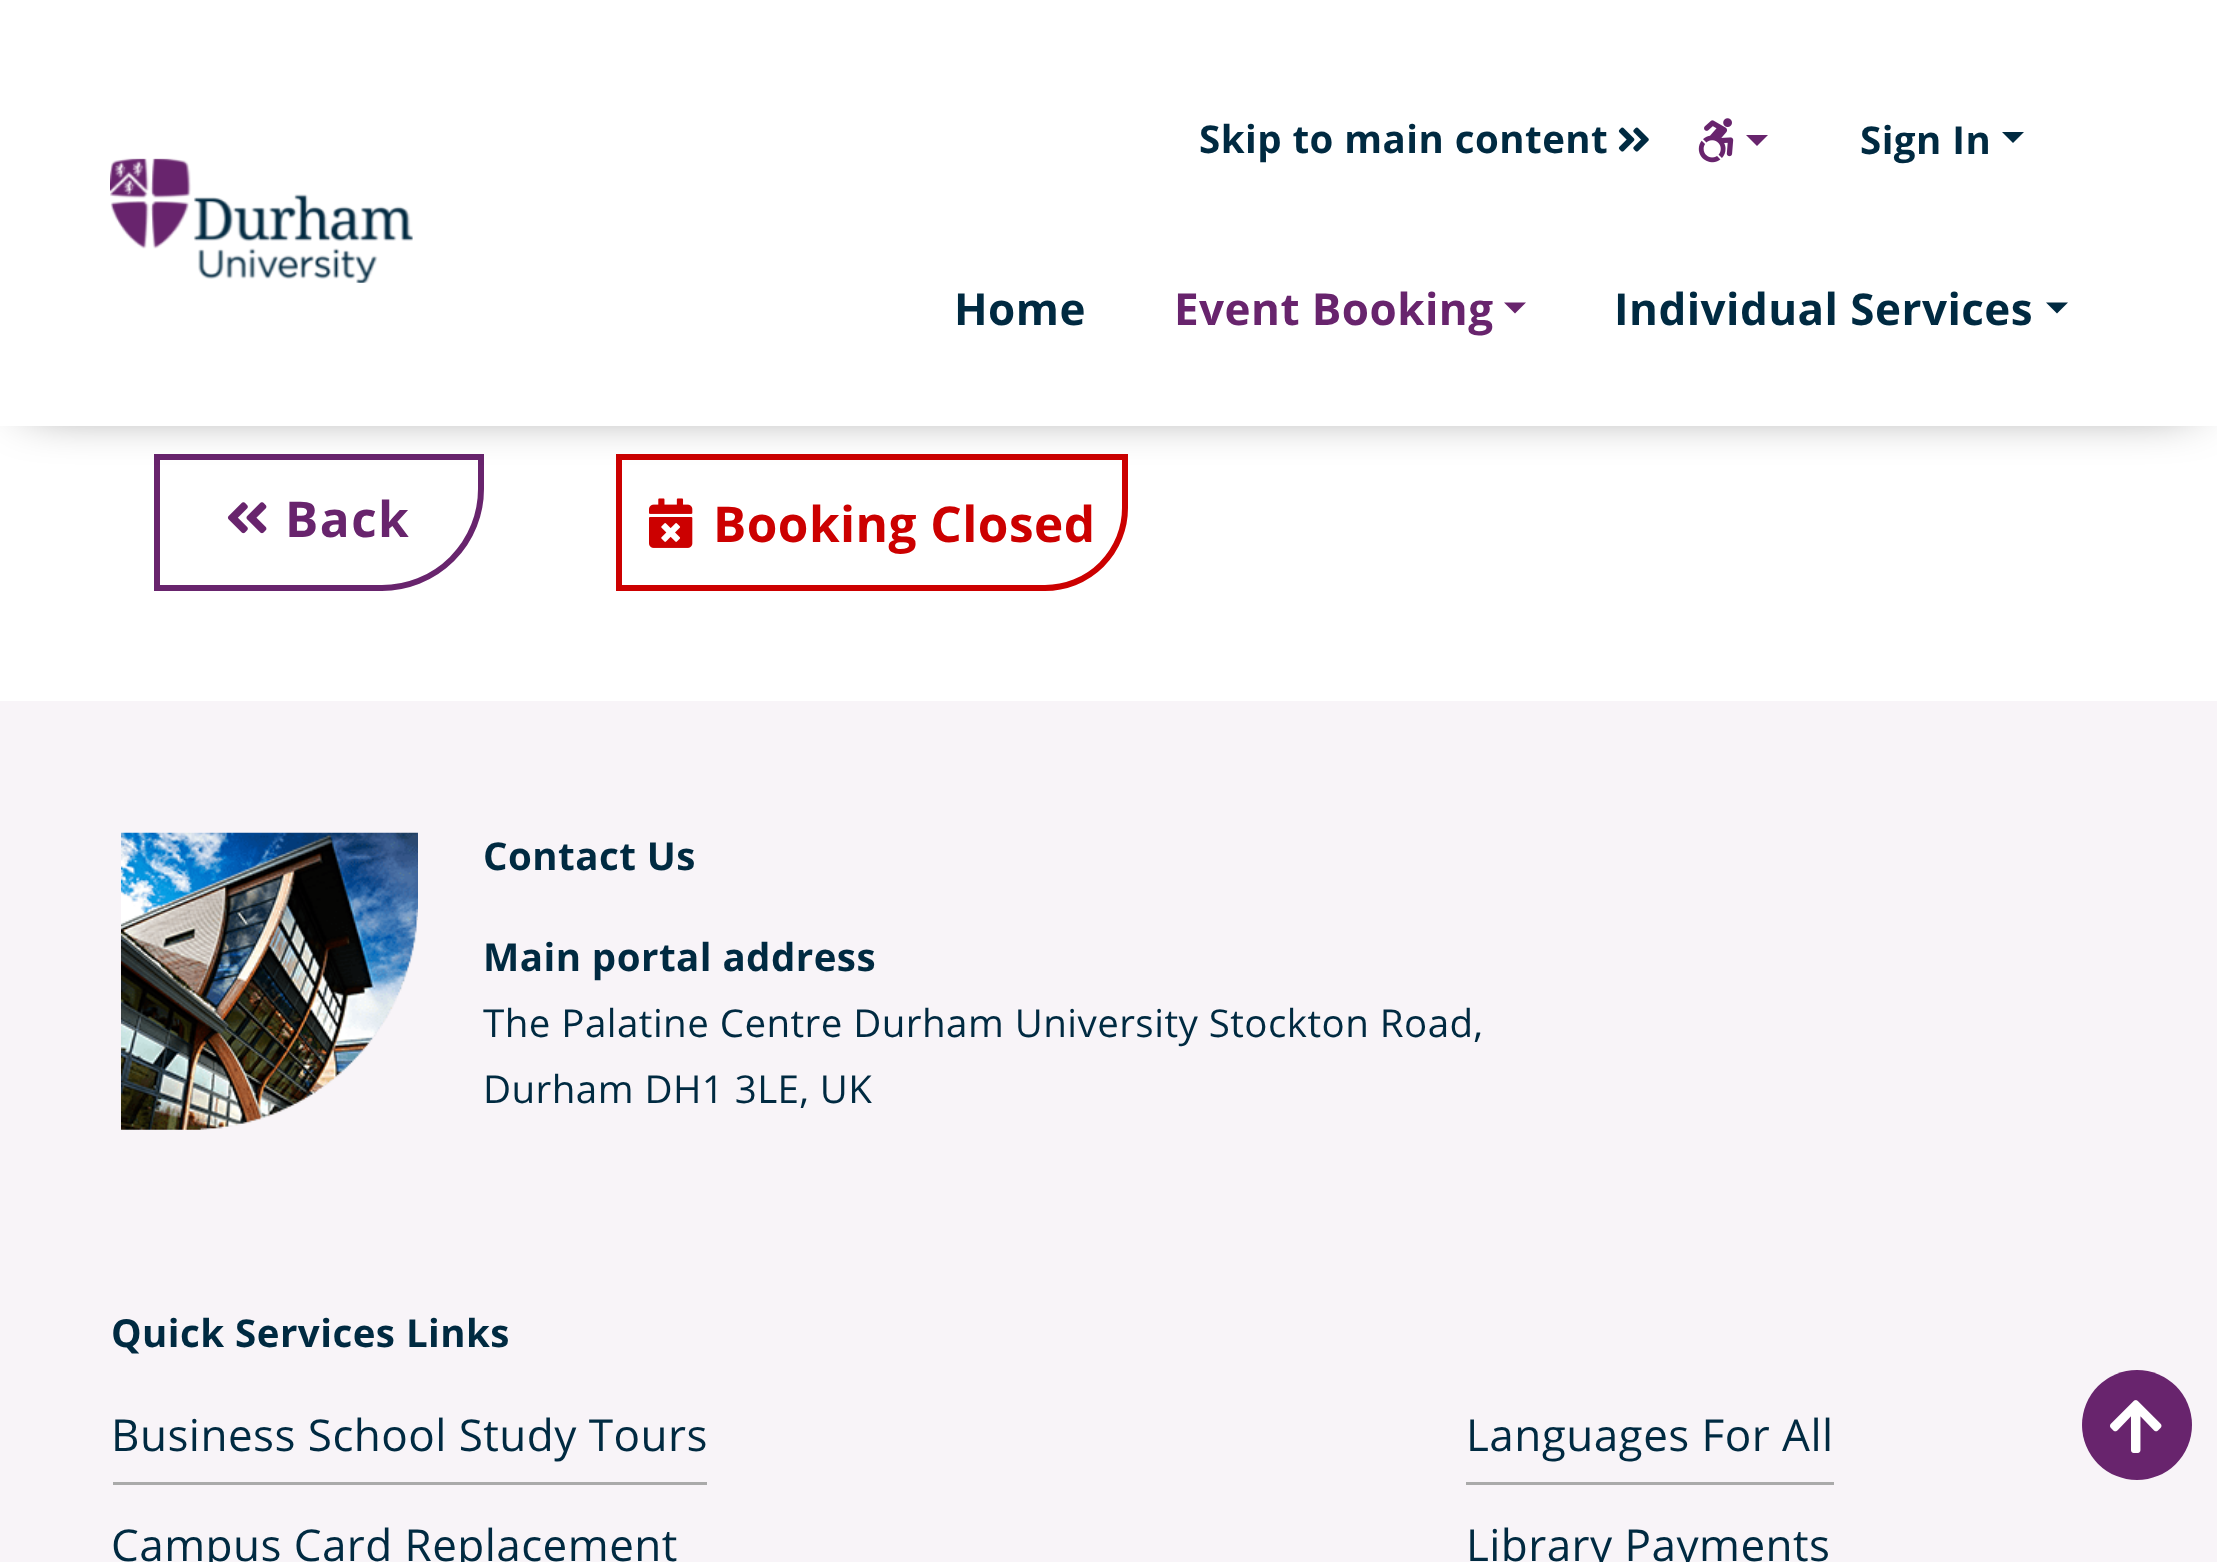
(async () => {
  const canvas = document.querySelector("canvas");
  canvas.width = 2217;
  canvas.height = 1562;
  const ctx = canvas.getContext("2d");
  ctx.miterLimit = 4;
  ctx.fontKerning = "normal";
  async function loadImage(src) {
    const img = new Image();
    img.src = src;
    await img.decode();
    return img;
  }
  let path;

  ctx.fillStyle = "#ffffff";
  ctx.fillRect(0, 0, 2217, 1562);
  ctx.beginPath();
  ctx.roundRect(157, 457, 324, 131, [0, 0, 99, 0]);
  ctx.strokeStyle = "#68246d";
  ctx.lineWidth = 6;
  ctx.stroke();
  ctx.beginPath();
  ctx.roundRect(619, 457, 506, 131, [0, 0, 80, 0]);
  ctx.strokeStyle = "#cc0000";
  ctx.stroke();
  ctx.fillStyle = "rgba(0, 0, 0, 0.8)";
  ctx.filter = "blur(27.5px)";
  ctx.beginPath();
  ctx.rect(28, 28, 2164, 371);
  ctx.fill();
  ctx.filter = "none";
  ctx.fillStyle = "#ffffff";
  ctx.fillRect(0, 0, 2217, 426);
  ctx.drawImage(await loadImage("img/1.png"), 1618, 127, 31, 25);
  ctx.drawImage(await loadImage("img/2.png"), 1698, 118, 36, 45);
  ctx.fillStyle = "#68246d";
  path = new Path2D("M1746 135H1768L1757 146Z");
  ctx.fill(path);
  ctx.fillStyle = "#002a41";
  path = new Path2D("M2002 132H2024L2013 143Z");
  ctx.fill(path);
  ctx.drawImage(await loadImage("img/3.png"), 110, 158, 303, 125);
  ctx.fillStyle = "#68246d";
  path = new Path2D("M1504 302.5H1526L1515 313.5Z");
  ctx.fill(path);
  ctx.fillStyle = "#002a41";
  path = new Path2D("M2046 302.5H2068L2057 313.5Z");
  ctx.fill(path);
  ctx.fillStyle = "#f8f4f8";
  ctx.fillRect(0, 701, 2217, 861);
  ctx.fillStyle = "#68246d";
  ctx.beginPath();
  ctx.arc(2137, 1425, 55, 0, Math.PI * 2);
  ctx.fill();
  ctx.drawImage(await loadImage("img/4.png"), 2110, 1400, 52, 53);
  ctx.drawImage(await loadImage("img/5.png"), 227, 502, 40, 32);
  ctx.drawImage(await loadImage("img/6.png"), 649, 498, 44, 50);
  ctx.drawImage(await loadImage("img/7.png"), 121, 832, 297, 298);
  ctx.fillStyle = "#aaaaaa";
  ctx.fillRect(113, 1482, 594, 3);
  ctx.fillRect(1466, 1482, 368, 3);
  ctx.letterSpacing = "0.45px";
  ctx.font = "bold 38.5px Open Sans";
  ctx.fillStyle = "#002a41";
  ctx.fillText("Skip to main content", 1199, 153);
  ctx.fillText("Sign In", 1860, 154);
  ctx.font = "bold 44px Open Sans";
  ctx.fillText("Home", 954, 325);
  ctx.fillStyle = "#68246d";
  ctx.fillText("Event Booking", 1174, 325);
  ctx.fillStyle = "#002a41";
  ctx.fillText("Individual Services", 1614, 325);
  ctx.letterSpacing = "1.5px";
  ctx.font = "bold 49.5px Open Sans";
  ctx.fillStyle = "#68246d";
  ctx.fillText("Back", 285, 537);
  ctx.letterSpacing = "0.45px";
  ctx.fillStyle = "#cc0000";
  ctx.fillText("Booking Closed", 713, 542);
  ctx.font = "bold 38.5px Open Sans";
  ctx.fillStyle = "#002a41";
  ctx.fillText("Contact Us", 483, 870);
  ctx.fillText("Main portal address", 483, 971);
  ctx.font = "38.5px Open Sans";
  ctx.fillText("The Palatine Centre Durham University Stockton Road,", 483, 1037);
  ctx.fillText("Durham DH1 3LE, UK", 483, 1103);
  ctx.font = "bold 38.5px Open Sans";
  ctx.fillText("Quick Services Links", 111, 1347);
  ctx.font = "44px Open Sans";
  for (const [text, x, y] of [
    ["Business School Study Tours", 111, 1451],
    ["Campus Card Replacement", 111, 1561],
    ["Languages For All", 1466, 1451],
    ["Library Payments", 1466, 1561],
  ]) {
    ctx.fillText(text, x, y);
  }
})();
